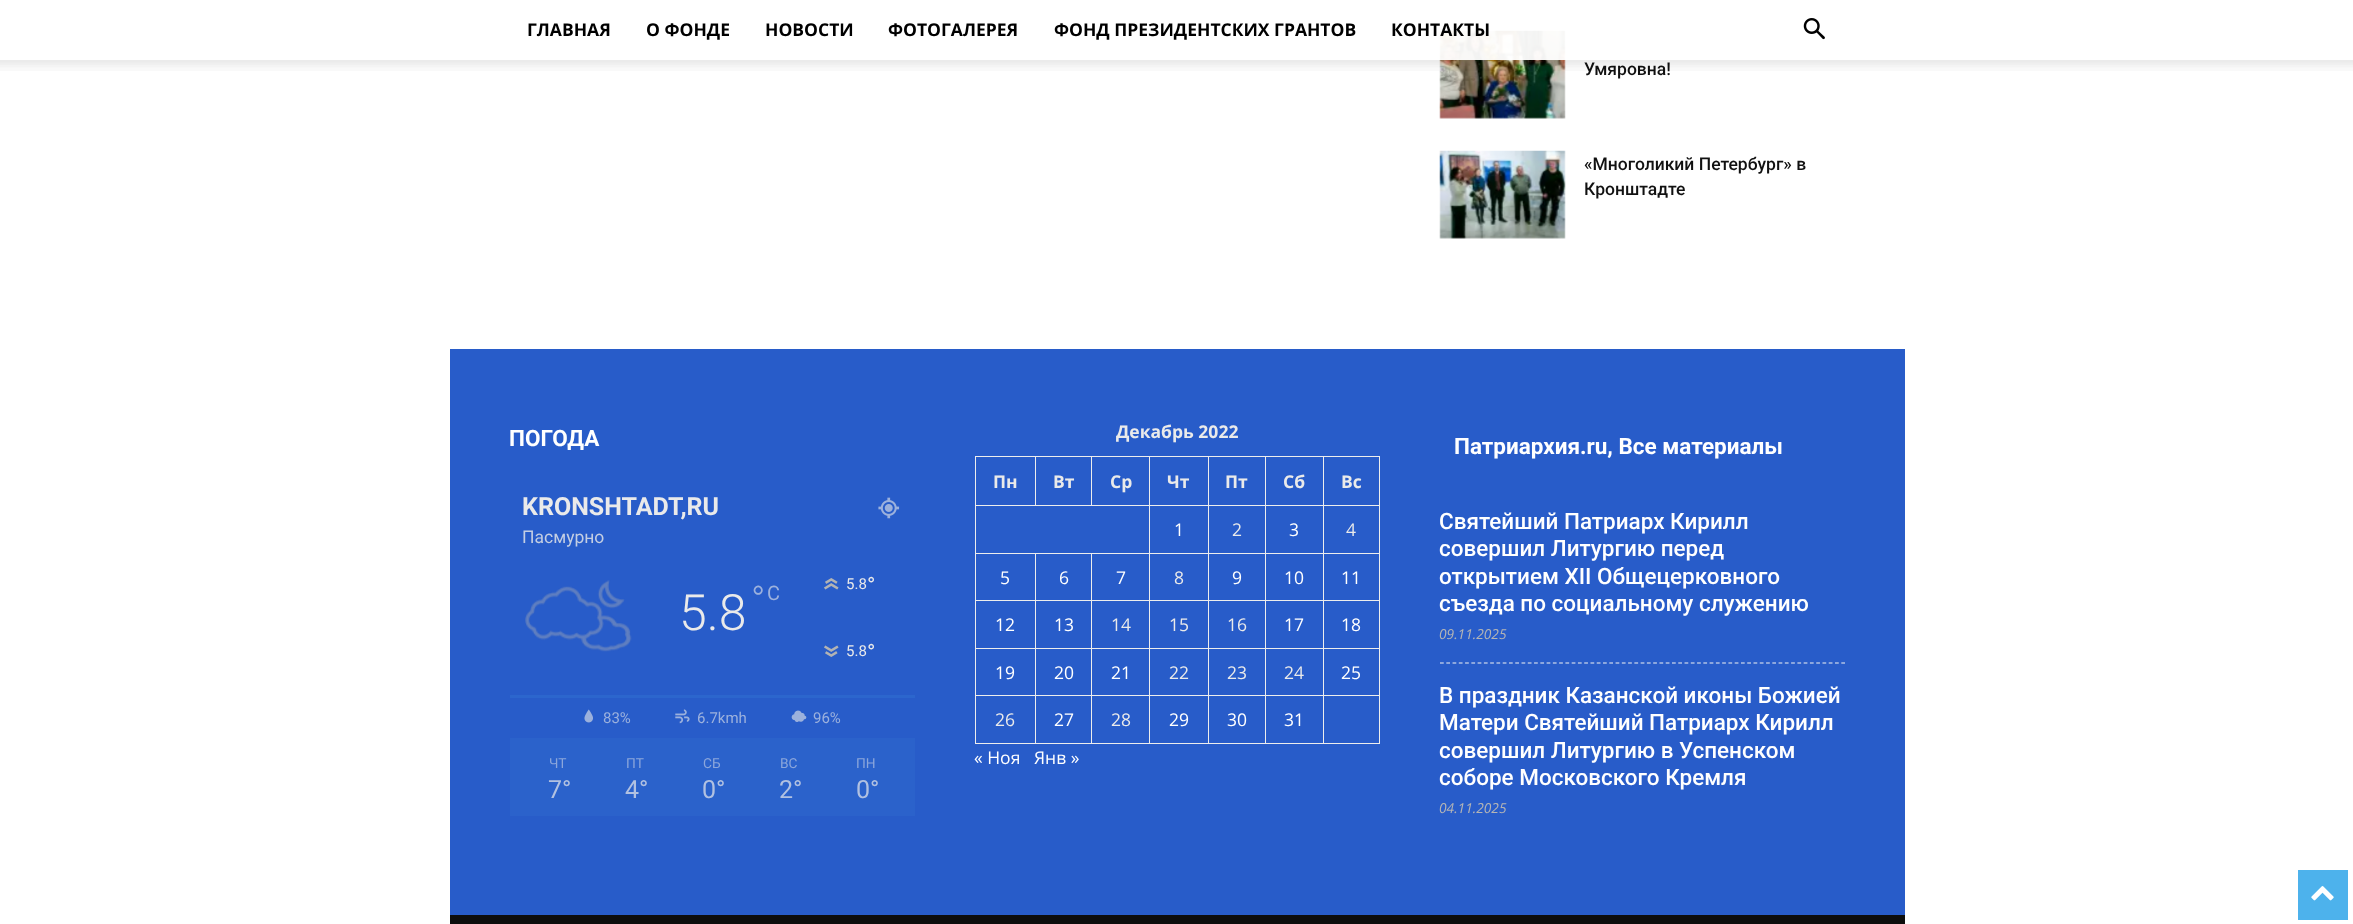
(async () => {
  const canvas = document.querySelector("canvas");
  canvas.width = 2353;
  canvas.height = 924;
  const ctx = canvas.getContext("2d");
  ctx.miterLimit = 4;
  ctx.fontKerning = "normal";
  async function loadImage(src) {
    const img = new Image();
    img.src = src;
    await img.decode();
    return img;
  }
  let path;

  ctx.fillStyle = "#ffffff";
  ctx.fillRect(0, 0, 2353, 924);
  ctx.drawImage(await loadImage("img/3.png"), 1439, 30, 127, 89);
  ctx.fillStyle = "rgba(255, 255, 255, 0.95)";
  ctx.fillRect(1439, 30, 127, 30);
  ctx.drawImage(await loadImage("img/1.png"), 1803, 18, 22, 22);
  ctx.drawImage(await loadImage("img/4.png"), 1439, 150, 127, 89);
  ctx.fillStyle = "#285cc9";
  ctx.fillRect(450, 349, 1455, 566);
  ctx.drawImage(await loadImage("img/5.png"), 878, 497, 22, 22);
  ctx.drawImage(await loadImage("img/6.png"), 525, 580, 107, 72);
  ctx.drawImage(await loadImage("img/7.png"), 824, 578, 15, 12);
  ctx.drawImage(await loadImage("img/8.png"), 824, 645, 15, 12);
  ctx.fillStyle = "#2c66cd";
  ctx.fillRect(510, 695, 405, 3);
  ctx.drawImage(await loadImage("img/9.png"), 584, 709, 9, 14);
  ctx.drawImage(await loadImage("img/10.png"), 675, 709, 15, 15);
  ctx.drawImage(await loadImage("img/11.png"), 791, 710, 16, 12);
  for (const [x, y, w, h, color] of [
    [510, 738, 405, 78, "#2b62cb"],
    [1323, 456, 57, 1, "#ededed"],
    [1323, 505, 57, 1, "#ededed"],
    [1323, 553, 57, 1, "#ededed"],
    [1323, 600, 57, 1, "#ededed"],
    [1323, 648, 57, 1, "#ededed"],
    [1323, 695, 57, 1, "#ededed"],
    [1379, 695, 1, 49, "#ededed"],
    [1323, 743, 57, 1, "#ededed"],
    [1323, 695, 1, 49, "#ededed"],
    [1265, 695, 59, 1, "#ededed"],
    [1323, 648, 1, 48, "#ededed"],
    [1265, 648, 59, 1, "#ededed"],
    [1323, 600, 1, 49, "#ededed"],
    [1265, 600, 59, 1, "#ededed"],
    [1323, 553, 1, 48, "#ededed"],
    [1265, 553, 59, 1, "#ededed"],
    [1323, 505, 1, 49, "#ededed"],
    [1265, 505, 59, 1, "#ededed"],
    [1323, 456, 1, 50, "#ededed"],
    [1265, 456, 59, 1, "#ededed"],
    [1265, 743, 59, 1, "#ededed"],
    [1265, 695, 1, 49, "#ededed"],
    [1208, 695, 58, 1, "#ededed"],
    [1265, 648, 1, 48, "#ededed"],
    [1208, 648, 58, 1, "#ededed"],
    [1265, 600, 1, 49, "#ededed"],
    [1208, 600, 58, 1, "#ededed"],
    [1265, 553, 1, 48, "#ededed"],
    [1208, 553, 58, 1, "#ededed"],
    [1265, 505, 1, 49, "#ededed"],
    [1208, 505, 58, 1, "#ededed"],
    [1265, 456, 1, 50, "#ededed"],
    [1208, 456, 58, 1, "#ededed"],
    [1208, 743, 58, 1, "#ededed"],
    [1208, 695, 1, 49, "#ededed"],
    [1149, 695, 60, 1, "#ededed"],
    [1208, 648, 1, 48, "#ededed"],
    [1149, 648, 60, 1, "#ededed"],
    [1208, 600, 1, 49, "#ededed"],
    [1149, 600, 60, 1, "#ededed"],
    [1208, 553, 1, 48, "#ededed"],
    [1149, 553, 60, 1, "#ededed"],
    [1208, 505, 1, 49, "#ededed"],
    [1149, 505, 60, 1, "#ededed"],
    [1208, 456, 1, 50, "#ededed"],
    [1149, 456, 60, 1, "#ededed"],
    [1149, 743, 60, 1, "#ededed"],
    [1149, 695, 1, 49, "#ededed"],
    [1091, 695, 59, 1, "#ededed"],
    [1149, 648, 1, 48, "#ededed"],
    [1091, 648, 59, 1, "#ededed"],
    [1149, 600, 1, 49, "#ededed"],
    [1091, 600, 59, 1, "#ededed"],
    [1149, 553, 1, 48, "#ededed"],
    [1091, 553, 59, 1, "#ededed"],
    [1149, 505, 1, 49, "#ededed"],
    [975, 505, 175, 1, "#ededed"],
    [1149, 456, 1, 50, "#ededed"],
    [1091, 456, 59, 1, "#ededed"],
    [1091, 456, 1, 50, "#ededed"],
    [1035, 456, 58, 1, "#ededed"],
    [1035, 456, 1, 50, "#ededed"],
    [975, 456, 61, 1, "#ededed"],
    [1091, 743, 59, 1, "#ededed"],
    [1091, 695, 1, 49, "#ededed"],
    [1035, 695, 58, 1, "#ededed"],
    [1091, 648, 1, 48, "#ededed"],
    [1035, 648, 58, 1, "#ededed"],
    [1091, 600, 1, 49, "#ededed"],
    [1035, 600, 58, 1, "#ededed"],
    [1091, 553, 1, 48, "#ededed"],
    [1035, 553, 58, 1, "#ededed"],
    [1035, 743, 58, 1, "#ededed"],
    [1035, 695, 1, 49, "#ededed"],
    [975, 695, 61, 1, "#ededed"],
    [1035, 648, 1, 48, "#ededed"],
    [975, 648, 61, 1, "#ededed"],
    [1035, 600, 1, 49, "#ededed"],
    [975, 600, 61, 1, "#ededed"],
    [1035, 553, 1, 48, "#ededed"],
    [975, 553, 61, 1, "#ededed"],
    [975, 743, 61, 1, "#ededed"],
    [975, 695, 1, 49, "#ededed"],
    [975, 648, 1, 48, "#ededed"],
    [975, 600, 1, 49, "#ededed"],
    [975, 553, 1, 48, "#ededed"],
    [975, 505, 1, 49, "#ededed"],
    [975, 456, 1, 50, "#ededed"],
    [1379, 648, 1, 48, "#ededed"],
    [1379, 600, 1, 49, "#ededed"],
    [1379, 553, 1, 48, "#ededed"],
    [1379, 505, 1, 49, "#ededed"],
    [1379, 456, 1, 50, "#ededed"],
  ]) {
    ctx.fillStyle = color;
    ctx.fillRect(x, y, w, h);
  }
  path = new Path2D("M1440 663H1845");
  ctx.strokeStyle = "#f1f1f1";
  ctx.lineWidth = 1.2;
  ctx.setLineDash([3.75, 2.52]);
  ctx.stroke(path);
  ctx.fillStyle = "#0d0d0d";
  ctx.fillRect(450, 915, 1455, 9);
  ctx.fillStyle = "#4db2ec";
  ctx.fillRect(2298, 870, 50, 50);
  ctx.drawImage(await loadImage("img/12.png"), 2311, 886, 23, 15);
  ctx.font = "bold 17.5px Open Sans";
  ctx.fillStyle = "#000000";
  for (const [text, x, y] of [
    ["ГЛАВНАЯ", 527, 36],
    ["О ФОНДЕ", 646, 36],
    ["НОВОСТИ", 765, 36],
    ["ФОТОГАЛЕРЕЯ", 888, 36],
    ["ФОНД ПРЕЗИДЕНТСКИХ ГРАНТОВ", 1054, 36],
    ["КОНТАКТЫ", 1391, 36],
  ]) {
    ctx.fillText(text, x, y);
  }
  ctx.font = "500 17.5px Roboto";
  ctx.fillStyle = "#111111";
  ctx.fillText("Умяровна!", 1584, 75);
  ctx.drawImage(await loadImage("img/2.png"), 0, 60, 2353, 11);
  ctx.fillText("«Многоликий Петербург» в", 1584, 170);
  ctx.fillText("Кронштадте", 1584, 195);
  ctx.font = "bold 22.5px Roboto";
  ctx.fillStyle = "#ffffff";
  ctx.fillText("ПОГОДА", 509, 446);
  ctx.font = "bold 25px Roboto";
  ctx.fillStyle = "#eaeaea";
  ctx.fillText("KRONSHTADT,RU", 522, 515);
  ctx.font = "17.5px Roboto";
  ctx.fillStyle = "#c3cee3";
  ctx.fillText("Пасмурно", 522, 543);
  ctx.font = "300 50px Roboto";
  ctx.fillStyle = "#eaeaea";
  ctx.fillText("5.8", 679, 630);
  ctx.font = "300 38px Roboto";
  ctx.fillStyle = "#9cb1dd";
  ctx.fillText("°", 751, 613);
  ctx.font = "20px Roboto";
  ctx.fillText("C", 767, 600);
  ctx.font = "15px Roboto";
  ctx.fillStyle = "#eaeaea";
  ctx.fillText("5.8", 846, 589);
  ctx.font = "22.5px Roboto";
  ctx.fillText("°", 867, 593);
  ctx.font = "15px Roboto";
  ctx.fillText("5.8", 846, 656);
  ctx.font = "22.5px Roboto";
  ctx.fillText("°", 867, 660);
  ctx.font = "15px Roboto";
  ctx.fillStyle = "#9cb1dd";
  for (const [text, x, y] of [
    ["83%", 603, 723],
    ["6.7kmh", 697, 723],
    ["96%", 813, 723],
  ]) {
    ctx.fillText(text, x, y);
  }
  ctx.font = "13.75px Roboto";
  ctx.fillStyle = "#8ba6db";
  ctx.fillText("ЧТ", 549, 768);
  ctx.font = "25px Roboto";
  ctx.fillStyle = "#b1c1e1";
  ctx.fillText("7°", 548, 798);
  ctx.font = "13.75px Roboto";
  ctx.fillStyle = "#8ba6db";
  ctx.fillText("ПТ", 626, 768);
  ctx.font = "25px Roboto";
  ctx.fillStyle = "#b1c1e1";
  ctx.fillText("4°", 625, 798);
  ctx.font = "13.75px Roboto";
  ctx.fillStyle = "#8ba6db";
  ctx.fillText("СБ", 703, 768);
  ctx.font = "25px Roboto";
  ctx.fillStyle = "#b1c1e1";
  ctx.fillText("0°", 702, 798);
  ctx.font = "13.75px Roboto";
  ctx.fillStyle = "#8ba6db";
  ctx.fillText("ВС", 780, 768);
  ctx.font = "25px Roboto";
  ctx.fillStyle = "#b1c1e1";
  ctx.fillText("2°", 779, 798);
  ctx.font = "13.75px Roboto";
  ctx.fillStyle = "#8ba6db";
  ctx.fillText("ПН", 856, 768);
  ctx.font = "25px Roboto";
  ctx.fillStyle = "#b1c1e1";
  ctx.fillText("0°", 856, 798);
  ctx.font = "bold 17.5px Open Sans";
  ctx.fillStyle = "#eaeaea";
  for (const [text, x, y] of [
    ["Декабрь 2022", 1116, 438],
    ["Пн", 993, 488],
    ["Вт", 1053, 488],
    ["Ср", 1110, 488],
    ["Чт", 1167, 488],
    ["Пт", 1225, 488],
    ["Сб", 1283, 488],
    ["Вс", 1341, 488],
  ]) {
    ctx.fillText(text, x, y);
  }
  ctx.font = "17.5px Open Sans";
  ctx.fillStyle = "#ffffff";
  ctx.fillText("1", 1174, 536);
  ctx.fillStyle = "#eaeaea";
  ctx.fillText("2", 1232, 536);
  ctx.fillStyle = "#ffffff";
  ctx.fillText("3", 1289, 536);
  ctx.fillStyle = "#eaeaea";
  ctx.fillText("4", 1346, 536);
  ctx.fillStyle = "#ffffff";
  for (const [text, x, y] of [
    ["5", 1000, 584],
    ["6", 1059, 584],
    ["7", 1116, 584],
  ]) {
    ctx.fillText(text, x, y);
  }
  ctx.fillStyle = "#eaeaea";
  ctx.fillText("8", 1174, 584);
  ctx.fillStyle = "#ffffff";
  for (const [text, x, y] of [
    ["9", 1232, 584],
    ["10", 1284, 584],
    ["11", 1341, 584],
    ["12", 995, 631],
    ["13", 1054, 631],
  ]) {
    ctx.fillText(text, x, y);
  }
  ctx.fillStyle = "#eaeaea";
  for (const [text, x, y] of [
    ["14", 1111, 631],
    ["15", 1169, 631],
    ["16", 1227, 631],
  ]) {
    ctx.fillText(text, x, y);
  }
  ctx.fillStyle = "#ffffff";
  for (const [text, x, y] of [
    ["17", 1284, 631],
    ["18", 1341, 631],
    ["19", 995, 679],
    ["20", 1054, 679],
    ["21", 1111, 679],
  ]) {
    ctx.fillText(text, x, y);
  }
  ctx.fillStyle = "#eaeaea";
  for (const [text, x, y] of [
    ["22", 1169, 679],
    ["23", 1227, 679],
    ["24", 1284, 679],
  ]) {
    ctx.fillText(text, x, y);
  }
  ctx.fillStyle = "#ffffff";
  ctx.fillText("25", 1341, 679);
  ctx.fillStyle = "#eaeaea";
  ctx.fillText("26", 995, 726);
  ctx.fillStyle = "#ffffff";
  ctx.fillText("27", 1054, 726);
  ctx.fillStyle = "#eaeaea";
  ctx.fillText("28", 1111, 726);
  ctx.fillStyle = "#ffffff";
  for (const [text, x, y] of [
    ["29", 1169, 726],
    ["30", 1227, 726],
    ["31", 1284, 726],
    ["« Ноя", 974, 764],
    ["Янв »", 1034, 764],
  ]) {
    ctx.fillText(text, x, y);
  }
  ctx.font = "bold 22.5px Roboto";
  ctx.fillText("Патриархия.ru, Все материалы", 1454, 454);
  ctx.font = "500 22.5px Roboto";
  for (const [text, x, y] of [
    ["Святейший Патриарх Кирилл", 1439, 529],
    ["совершил Литургию перед", 1439, 556],
    ["открытием XII Общецерковного", 1439, 584],
    ["съезда по социальному служению", 1439, 611],
  ]) {
    ctx.fillText(text, x, y);
  }
  ctx.font = "italic 13.75px Open Sans";
  ctx.fillStyle = "#b5b5b5";
  ctx.fillText("09.11.2025", 1439, 639);
  ctx.font = "500 22.5px Roboto";
  ctx.fillStyle = "#ffffff";
  for (const [text, x, y] of [
    ["В праздник Казанской иконы Божией", 1439, 703],
    ["Матери Святейший Патриарх Кирилл", 1439, 730],
    ["совершил Литургию в Успенском", 1439, 758],
    ["соборе Московского Кремля", 1439, 785],
  ]) {
    ctx.fillText(text, x, y);
  }
  ctx.font = "italic 13.75px Open Sans";
  ctx.fillStyle = "#b5b5b5";
  ctx.fillText("04.11.2025", 1439, 813);
})();
